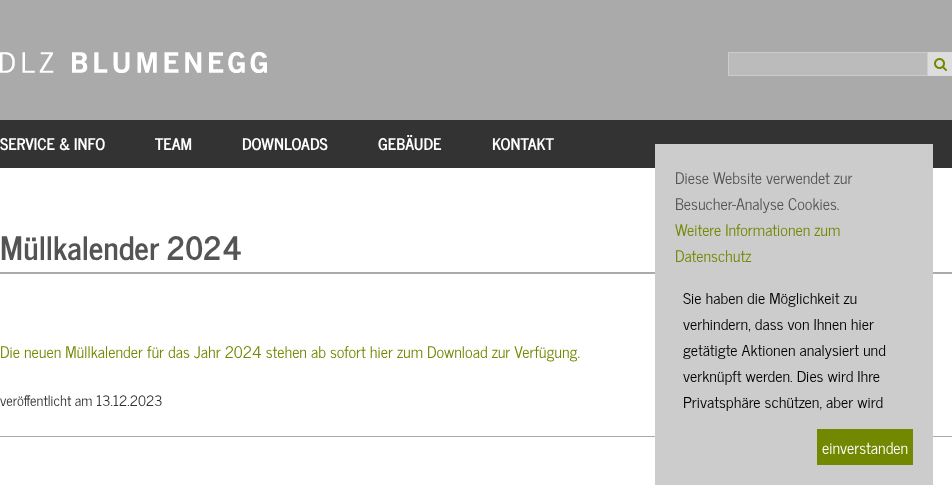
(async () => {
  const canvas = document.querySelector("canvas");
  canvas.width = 952;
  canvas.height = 495;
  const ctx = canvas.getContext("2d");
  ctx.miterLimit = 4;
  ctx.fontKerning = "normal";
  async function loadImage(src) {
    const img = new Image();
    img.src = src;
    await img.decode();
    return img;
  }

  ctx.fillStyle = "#ffffff";
  ctx.fillRect(0, 0, 952, 495);
  ctx.fillStyle = "#aaaaaa";
  ctx.fillRect(0, 0, 952, 120);
  ctx.drawImage(await loadImage("img/1.png"), 0, 51, 267, 22);
  ctx.fillStyle = "#bbbbbb";
  ctx.beginPath();
  ctx.rect(728.5, 52.5, 199, 23);
  ctx.fill();
  ctx.strokeStyle = "#cccccc";
  ctx.stroke();
  ctx.fillStyle = "#dddddd";
  ctx.fillRect(928, 52, 24, 24);
  ctx.drawImage(await loadImage("img/2.png"), 934, 58, 13, 13);
  for (const [x, y, w, h, color] of [
    [0, 120, 952, 48, "#333333"],
    [0, 272, 952, 2, "#aaaaaa"],
    [0, 436, 952, 1, "#aaaaaa"],
    [655, 144, 278, 341, "#cccccc"],
  ]) {
    ctx.fillStyle = color;
    ctx.fillRect(x, y, w, h);
  }
  ctx.drawImage(await loadImage("img/3.png"), 683, 293, 203, 118);
  ctx.fillStyle = "#718800";
  ctx.fillRect(817, 429, 96, 36);
  ctx.font = "bold 16px News Cycle";
  ctx.fillStyle = "#ffffff";
  for (const [text, x, y] of [
    ["SERVICE & INFO", 0, 150],
    ["TEAM", 155, 150],
    ["DOWNLOADS", 242, 150],
    ["GEBÄUDE", 378, 150],
    ["KONTAKT", 492, 150],
  ]) {
    ctx.fillText(text, x, y);
  }
  ctx.font = "bold 32px News Cycle";
  ctx.fillStyle = "#545454";
  ctx.fillText("Müllkalender 2024", 0, 260);
  ctx.font = "16px News Cycle";
  ctx.fillStyle = "#718800";
  ctx.fillText("Die neuen Müllkalender für das Jahr 2024 stehen ab sofort hier zum Download zur Verfügung.", 0, 358);
  ctx.font = "14.4px News Cycle";
  ctx.fillStyle = "#333333";
  ctx.fillText("veröffentlicht am 13.12.2023", 0, 406);
  ctx.font = "16px News Cycle";
  ctx.fillStyle = "#545454";
  ctx.fillText("Diese Website verwendet zur", 675, 184);
  ctx.fillText("Besucher-Analyse Cookies.", 675, 210);
  ctx.fillStyle = "#718800";
  ctx.fillText("Weitere Informationen zum", 675, 236);
  ctx.fillText("Datenschutz", 675, 262);
  ctx.fillStyle = "#ffffff";
  ctx.fillText("einverstanden", 822, 454);
})();
